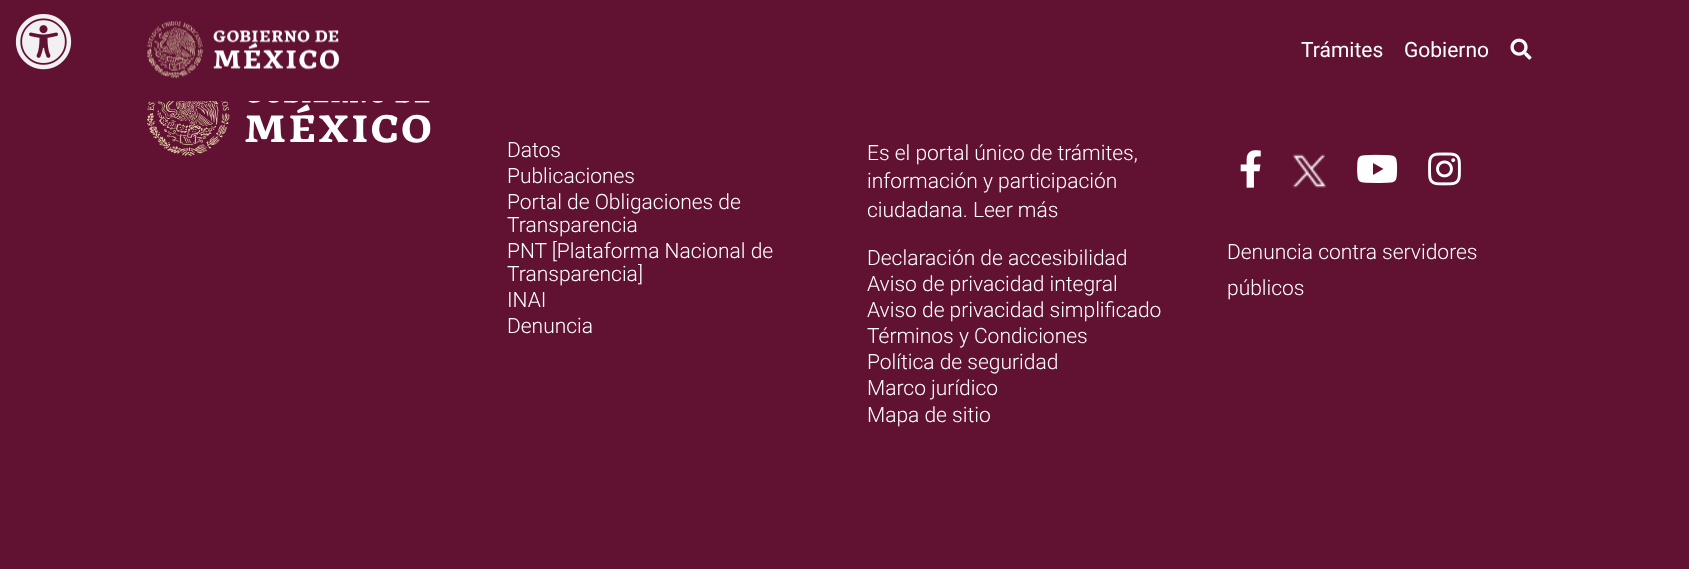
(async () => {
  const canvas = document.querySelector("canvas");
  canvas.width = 1689;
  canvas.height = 569;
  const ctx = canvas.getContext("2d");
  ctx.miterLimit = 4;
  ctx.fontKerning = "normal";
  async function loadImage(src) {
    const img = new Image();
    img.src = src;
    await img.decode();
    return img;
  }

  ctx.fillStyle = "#611232";
  ctx.fillRect(0, 0, 1689, 569);
  ctx.drawImage(await loadImage("img/1.png"), 15, 14, 57, 56);
  ctx.drawImage(await loadImage("img/2.png"), 147, 20, 192, 59);
  ctx.drawImage(await loadImage("img/3.png"), 1510, 38, 22, 22);
  ctx.drawImage(await loadImage("img/4.png"), 147, 101, 284, 55);
  ctx.drawImage(await loadImage("img/5.png"), 1240, 150, 21, 38);
  ctx.drawImage(await loadImage("img/6.png"), 1292, 154, 35, 34);
  ctx.drawImage(await loadImage("img/7.png"), 1357, 154, 41, 29);
  ctx.drawImage(await loadImage("img/8.png"), 1428, 152, 33, 34);
  ctx.font = "21px Roboto";
  ctx.fillStyle = "#ffffff";
  ctx.fillText("Trámites", 1301, 57);
  ctx.fillText("Gobierno", 1404, 57);
  ctx.font = "300 21px Roboto";
  for (const [text, x, y] of [
    ["Datos", 507, 157],
    ["Publicaciones", 507, 183],
    ["Portal de Obligaciones de", 507, 209],
    ["Transparencia", 507, 232],
    ["PNT [Plataforma Nacional de", 507, 258],
    ["Transparencia]", 507, 281],
    ["INAI", 507, 307],
    ["Denuncia", 507, 333],
    ["Es el portal único de trámites,", 867, 160],
    ["información y participación", 867, 188],
    ["ciudadana. Leer más", 867, 217],
    ["Declaración de accesibilidad", 867, 265],
    ["Aviso de privacidad integral", 867, 291],
    ["Aviso de privacidad simplificado", 867, 317],
    ["Términos y Condiciones", 867, 343],
    ["Política de seguridad", 867, 369],
    ["Marco jurídico", 867, 395],
    ["Mapa de sitio", 867, 422],
    ["Denuncia contra servidores", 1227, 259],
    ["públicos", 1227, 295],
  ]) {
    ctx.fillText(text, x, y);
  }
})();
